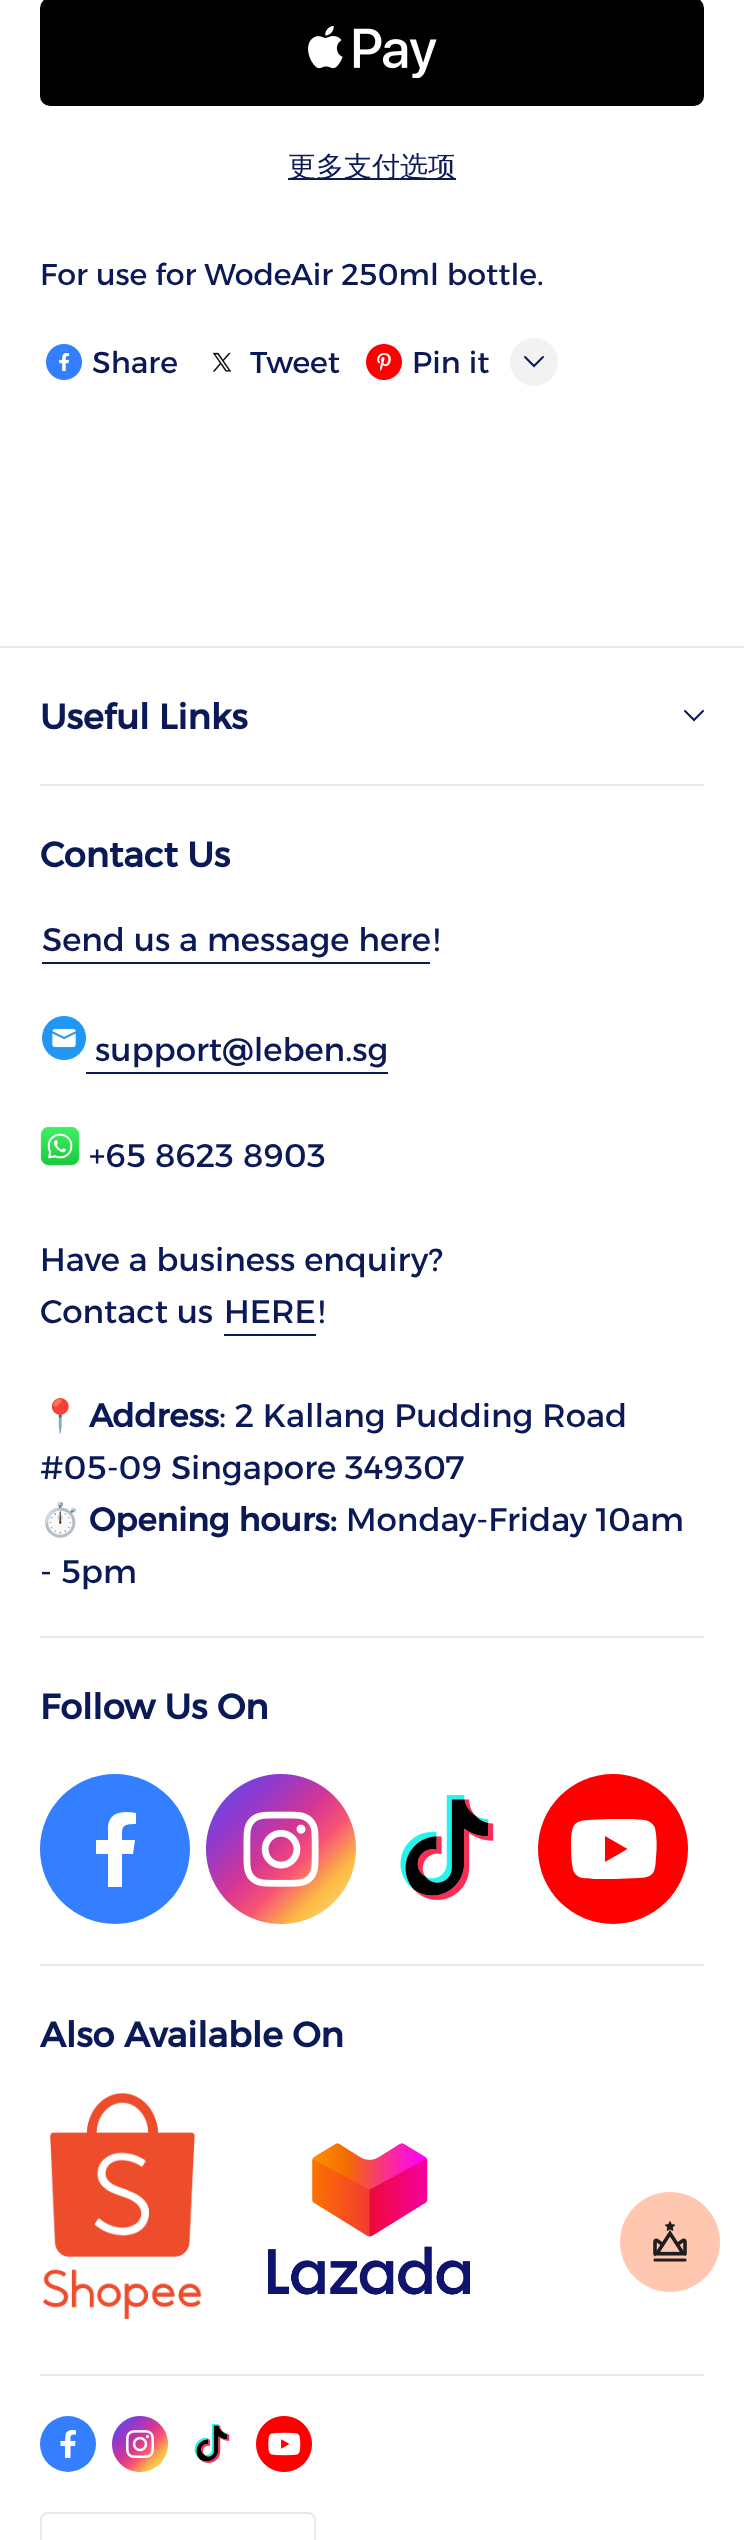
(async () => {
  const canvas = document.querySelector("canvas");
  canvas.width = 744;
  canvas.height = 2540;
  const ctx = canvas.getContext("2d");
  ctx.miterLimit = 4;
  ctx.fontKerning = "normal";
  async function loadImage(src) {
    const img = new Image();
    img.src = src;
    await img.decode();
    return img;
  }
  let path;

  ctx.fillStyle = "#ffffff";
  ctx.fillRect(0, 0, 744, 2540);
  ctx.fillStyle = "#000000";
  ctx.beginPath();
  ctx.roundRect(40, -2, 664, 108, 10);
  ctx.fill();
  ctx.drawImage(await loadImage("img/1.png"), 308, 26, 129, 52);
  ctx.fillStyle = "#0b1957";
  ctx.fillRect(288, 178, 168, 2);
  ctx.drawImage(await loadImage("img/2.png"), 46, 344, 36, 36);
  ctx.drawImage(await loadImage("img/3.png"), 212, 352, 20, 20);
  ctx.drawImage(await loadImage("img/4.png"), 366, 344, 36, 36);
  ctx.fillStyle = "#f2f2f2";
  ctx.beginPath();
  ctx.arc(534, 362, 24, 0, Math.PI * 2);
  ctx.fill();
  path = new Path2D("M525 357L534 366L543 357");
  ctx.strokeStyle = "#0b1957";
  ctx.lineWidth = 2;
  ctx.lineCap = "round";
  ctx.stroke(path);
  ctx.fillStyle = "#e7e8ee";
  ctx.fillRect(0, 646, 744, 2);
  path = new Path2D("M685 711L694 720L703 711");
  ctx.stroke(path);
  ctx.fillRect(40, 784, 664, 2);
  ctx.fillStyle = "#0b1957";
  ctx.fillRect(42, 962, 388, 2);
  ctx.drawImage(await loadImage("img/5.png"), 42, 1016, 44, 44);
  ctx.fillRect(86, 1072, 302, 2);
  ctx.drawImage(await loadImage("img/6.png"), 40, 1126, 40, 40);
  ctx.fillRect(224, 1334, 92, 2);
  ctx.fillStyle = "#e7e8ee";
  ctx.fillRect(40, 1636, 664, 2);
  ctx.fillStyle = "#337fff";
  ctx.beginPath();
  ctx.arc(115, 1849, 75, 0, Math.PI * 2);
  ctx.fill();
  ctx.fillStyle = "#ffffff";
  path = new Path2D("M133 1854L135 1840H122C122 1827 121 1824 136 1824V1813C124 1811 110 1811 108 1826V1840H96V1854H108V1887H122V1854Z");
  ctx.fill(path);
  ctx.drawImage(await loadImage("img/7.png"), 206, 1774, 150, 150);
  ctx.drawImage(await loadImage("img/8.png"), 400, 1795, 94, 105);
  ctx.fillStyle = "#ff0000";
  ctx.beginPath();
  ctx.arc(613, 1849, 75, 0, Math.PI * 2);
  ctx.fill();
  ctx.fillStyle = "#ffffff";
  path = new Path2D("M655 1828C654 1825 652 1823 648 1821C644 1819 638 1820 634 1819H609L588 1820C573 1821 572 1826 571 1841C571 1851 571 1861 573 1870C574 1873 576 1875 579 1877C583 1879 589 1878 594 1879H615L639 1878C655 1877 655 1872 656 1857C657 1848 657 1837 655 1828Z");
  ctx.fill(path);
  ctx.fillStyle = "#ff0000";
  path = new Path2D("M605 1862L627.5 1849L605 1836Z");
  ctx.fill(path);
  ctx.fillStyle = "#e7e8ee";
  ctx.fillRect(40, 1964, 664, 2);
  ctx.drawImage(await loadImage("img/9.png"), 42, 2093, 160, 227);
  ctx.drawImage(await loadImage("img/10.png"), 268, 2143, 202, 152);
  ctx.fillRect(40, 2374, 664, 2);
  ctx.fillStyle = "#337fff";
  ctx.beginPath();
  ctx.arc(68, 2444, 28, 0, Math.PI * 2);
  ctx.fill();
  ctx.fillStyle = "#ffffff";
  path = new Path2D("M75 2446L75.5 2441H70.5C70.5 2435.5 70 2434.5 76 2434.5V2430.5C71.5 2429.5 66 2430 65.5 2435.5L65 2441H60.5V2446H65V2458H70.5V2446Z");
  ctx.fill(path);
  ctx.drawImage(await loadImage("img/11.png"), 112, 2416, 56, 56);
  ctx.drawImage(await loadImage("img/12.png"), 194, 2423, 36, 40);
  ctx.drawImage(await loadImage("img/13.png"), 256, 2416, 56, 56);
  ctx.beginPath();
  ctx.roundRect(41, 2513, 274, 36, 7);
  ctx.strokeStyle = "#e7e8ee";
  ctx.stroke();
  ctx.fillStyle = "#ffc7b0";
  ctx.beginPath();
  ctx.arc(670, 2242, 50, 0, Math.PI * 2);
  ctx.fill();
  ctx.drawImage(await loadImage("img/14.png"), 653, 2221, 34, 41);
  ctx.font = "500 28px WenQuanYi Zen Hei";
  ctx.fillStyle = "#0b1957";
  ctx.fillText("更多支付选项", 288, 176);
  ctx.font = "30px Alexandria";
  for (const [text, x, y] of [
    ["For use for WodeAir 250ml bottle.", 40, 285],
    ["Share", 92, 373],
    ["Tweet", 250, 373],
    ["Pin it", 412, 373],
  ]) {
    ctx.fillText(text, x, y);
  }
  ctx.font = "bold 35px Alexandria";
  ctx.fillText("Useful Links", 40, 729);
  ctx.fillText("Contact Us", 40, 867);
  ctx.font = "32.5px Alexandria";
  for (const [text, x, y] of [
    ["Send us a message here", 42, 951],
    ["!", 433, 951],
    ["support@leben.sg", 95, 1061],
    ["+65 8623 8903", 89, 1167],
    ["Have a business enquiry?", 40, 1271],
    ["Contact us", 40, 1323],
    ["HERE", 224, 1323],
    ["!", 318, 1323],
  ]) {
    ctx.fillText(text, x, y);
  }
  ctx.font = "32.5px Noto Color Emoji";
  ctx.fillText("📍", 40, 1427);
  ctx.font = "bold 32.5px Alexandria";
  ctx.fillText("Address", 89, 1427);
  ctx.font = "32.5px Alexandria";
  ctx.fillText(": 2 Kallang Pudding Road", 219, 1427);
  ctx.fillText("#05-09 Singapore 349307", 40, 1479);
  ctx.font = "bold 32.5px Noto Color Emoji";
  ctx.fillText("⏱️", 40, 1531);
  ctx.font = "bold 32.5px Alexandria";
  ctx.fillText("Opening hours:", 89, 1531);
  ctx.font = "32.5px Alexandria";
  ctx.fillText("Monday-Friday 10am", 346, 1531);
  ctx.fillText("- 5pm", 40, 1583);
  ctx.font = "bold 35px Alexandria";
  ctx.fillText("Follow Us On", 40, 1719);
  ctx.fillText("Also Available On", 40, 2047);
})();
